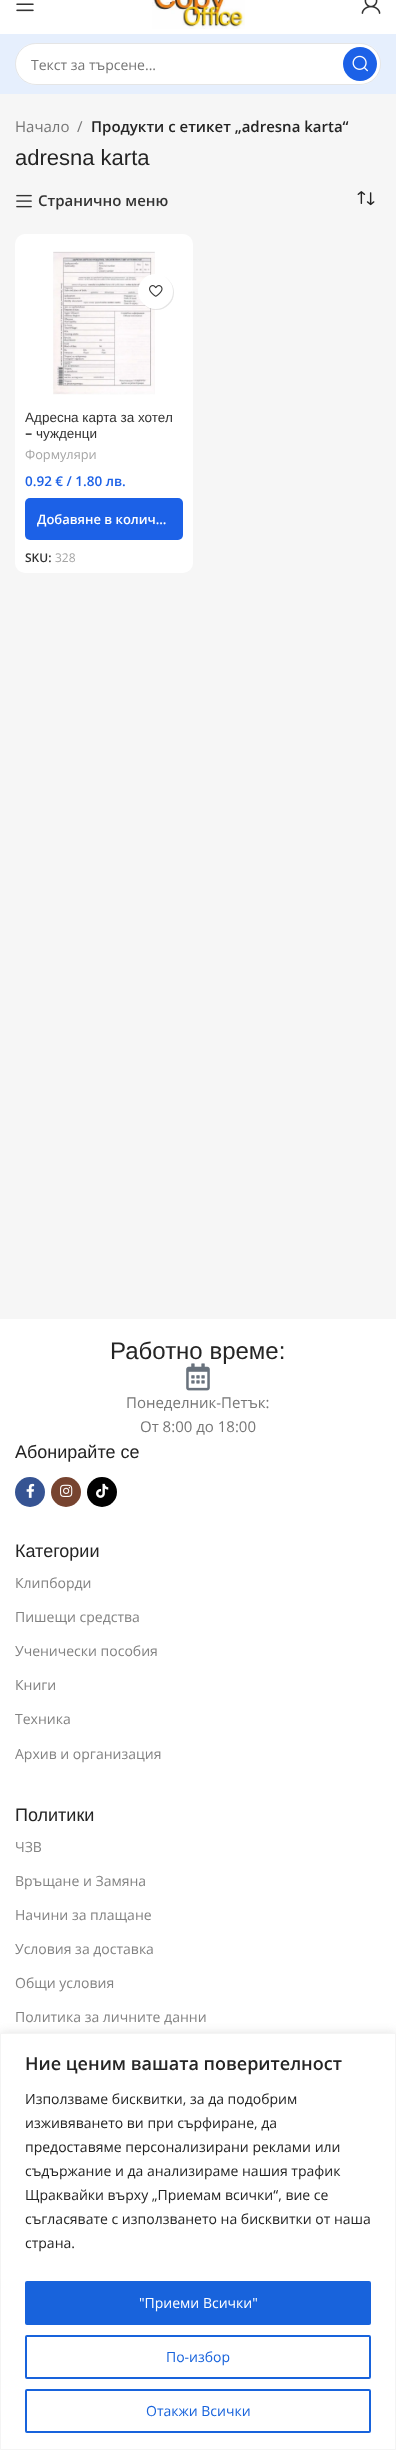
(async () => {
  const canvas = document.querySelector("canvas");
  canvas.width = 396;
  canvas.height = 2450;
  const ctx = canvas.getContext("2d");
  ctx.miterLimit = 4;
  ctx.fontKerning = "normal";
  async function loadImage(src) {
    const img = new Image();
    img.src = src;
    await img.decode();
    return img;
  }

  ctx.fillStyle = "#ffffff";
  ctx.fillRect(0, 0, 396, 2450);
  ctx.drawImage(await loadImage("img/1.png"), 16, 3, 18, 9);
  ctx.drawImage(await loadImage("img/2.png"), 152, 0, 93, 29);
  ctx.drawImage(await loadImage("img/3.png"), 361, 0, 20, 14);
  ctx.fillStyle = "#e6effd";
  ctx.fillRect(0, 34, 396, 60);
  ctx.fillStyle = "#ffffff";
  ctx.beginPath();
  ctx.roundRect(15, 43, 366, 42, 21);
  ctx.fill();
  ctx.beginPath();
  ctx.roundRect(15.5, 43.5, 365, 41, 20.5);
  ctx.strokeStyle = "rgba(0, 0, 0, 0.1)";
  ctx.stroke();
  ctx.fillStyle = "#1c61e7";
  ctx.beginPath();
  ctx.arc(360, 64, 17, 0, Math.PI * 2);
  ctx.fill();
  ctx.drawImage(await loadImage("img/4.png"), 352, 55, 16, 17);
  ctx.fillStyle = "#f6f6f6";
  ctx.fillRect(0, 94, 396, 1225);
  ctx.drawImage(await loadImage("img/5.png"), 16, 194, 16, 14);
  ctx.drawImage(await loadImage("img/6.png"), 357, 191, 18, 15);
  ctx.fillStyle = "#ffffff";
  ctx.beginPath();
  ctx.roundRect(15, 234, 178, 339, 10);
  ctx.fill();
  ctx.drawImage(await loadImage("img/7.png"), 53, 251, 102, 144);
  ctx.fillStyle = "rgba(0, 0, 0, 0.1)";
  ctx.filter = "blur(0.5px)";
  ctx.beginPath();
  ctx.roundRect(139, 275, 35, 35, 17.5);
  ctx.fill();
  ctx.filter = "none";
  ctx.fillStyle = "#ffffff";
  ctx.beginPath();
  ctx.arc(155.5, 291.5, 17.5, 0, Math.PI * 2);
  ctx.fill();
  ctx.drawImage(await loadImage("img/8.png"), 149, 285, 14, 12);
  ctx.fillStyle = "#1c61e7";
  ctx.beginPath();
  ctx.roundRect(25, 498, 158, 42, 5);
  ctx.fill();
  ctx.fillStyle = "#365493";
  ctx.beginPath();
  ctx.arc(30, 1492, 15, 0, Math.PI * 2);
  ctx.fill();
  ctx.drawImage(await loadImage("img/10.png"), 26, 1483, 9, 15);
  ctx.fillStyle = "#774430";
  ctx.beginPath();
  ctx.arc(66, 1492, 15, 0, Math.PI * 2);
  ctx.fill();
  ctx.drawImage(await loadImage("img/11.png"), 60, 1484, 13, 13);
  ctx.fillStyle = "#010101";
  ctx.beginPath();
  ctx.arc(102, 1492, 15, 0, Math.PI * 2);
  ctx.fill();
  ctx.drawImage(await loadImage("img/12.png"), 96, 1483, 13, 15);
  ctx.fillStyle = "rgba(172, 171, 171, 0.3)";
  ctx.filter = "blur(5px)";
  ctx.beginPath();
  ctx.rect(0, 2032, 396, 417);
  ctx.fill();
  ctx.filter = "none";
  ctx.fillStyle = "#ffffff";
  ctx.beginPath();
  ctx.rect(0.5, 2033.5, 395, 416);
  ctx.fill();
  ctx.strokeStyle = "#f4f4f4";
  ctx.stroke();
  ctx.fillStyle = "#1863dc";
  ctx.beginPath();
  ctx.roundRect(26, 2282, 344, 42, 1);
  ctx.fill();
  ctx.strokeStyle = "#1863dc";
  ctx.lineWidth = 2;
  ctx.stroke();
  ctx.beginPath();
  ctx.roundRect(26, 2336, 344, 42, 1);
  ctx.stroke();
  ctx.beginPath();
  ctx.roundRect(26, 2390, 344, 42, 1);
  ctx.stroke();
  ctx.font = "14px Open Sans";
  ctx.fillStyle = "#767676";
  ctx.fillText("Текст за търсене...", 31, 70);
  ctx.font = "15px Open Sans";
  ctx.fillText("Начало", 15, 132);
  ctx.fillText("/", 77, 132);
  ctx.font = "600 15px Open Sans";
  ctx.fillStyle = "#242424";
  ctx.fillText("Продукти с етикет „adresna karta“", 91, 132);
  ctx.font = "22px Liberation Sans";
  ctx.fillText("adresna karta", 15, 165);
  ctx.font = "600 15px Open Sans";
  ctx.fillStyle = "#333333";
  ctx.fillText("Странично меню", 38, 206);
  ctx.font = "13.5px Liberation Sans";
  ctx.fillText("Адресна карта за хотел", 25, 422);
  ctx.font = "500 13.5px Lexend Deca";
  ctx.fillText("–", 25, 438);
  ctx.font = "13.5px Liberation Sans";
  ctx.fillText("чужденци", 36, 438);
  ctx.font = "12.75px Open Sans";
  ctx.fillStyle = "#a5a5a5";
  ctx.fillText("Формуляри", 25, 459);
  ctx.font = "600 13.5px Open Sans";
  ctx.fillStyle = "#1c61e7";
  ctx.fillText("0.92 € / 1.80 лв.", 25, 486);
  ctx.font = "600 13px Open Sans";
  ctx.fillStyle = "#ffffff";
  ctx.fillText("Добавяне в колич…", 37, 524);
  ctx.font = "600 12px Open Sans";
  ctx.fillStyle = "#333333";
  ctx.fillText("SKU:", 25, 562);
  ctx.font = "12px Open Sans";
  ctx.fillStyle = "#a5a5a5";
  ctx.fillText("328", 55, 562);
  ctx.font = "24px Liberation Sans";
  ctx.fillStyle = "#242424";
  ctx.fillText("Работно време:", 110, 1359);
  ctx.drawImage(await loadImage("img/9.png"), 186, 1363, 24, 28);
  ctx.font = "15px Open Sans";
  ctx.fillStyle = "#767676";
  ctx.fillText("Понеделник-Петък:", 126, 1408);
  ctx.fillText("От 8:00 до 18:00", 140, 1432);
  ctx.font = "18px Liberation Sans";
  ctx.fillStyle = "#242424";
  ctx.fillText("Абонирайте се", 15, 1458);
  ctx.fillText("Категории", 15, 1557);
  ctx.font = "14px Open Sans";
  ctx.fillStyle = "#838383";
  for (const [text, x, y] of [
    ["Клипборди", 15, 1588],
    ["Пишещи средства", 15, 1622],
    ["Ученически пособия", 15, 1656],
    ["Книги", 15, 1690],
    ["Техника", 15, 1724],
    ["Архив и организация", 15, 1759],
  ]) {
    ctx.fillText(text, x, y);
  }
  ctx.font = "18px Liberation Sans";
  ctx.fillStyle = "#242424";
  ctx.fillText("Политики", 15, 1821);
  ctx.font = "14px Open Sans";
  ctx.fillStyle = "#838383";
  for (const [text, x, y] of [
    ["ЧЗВ", 15, 1852],
    ["Връщане и Замяна", 15, 1886],
    ["Начини за плащане", 15, 1920],
    ["Условия за доставка", 15, 1954],
    ["Общи условия", 15, 1988],
    ["Политика за личните данни", 15, 2022],
  ]) {
    ctx.fillText(text, x, y);
  }
  ctx.font = "600 18px Open Sans";
  ctx.fillStyle = "#242424";
  ctx.fillText("Ние ценим вашата поверителност", 25, 2070);
  ctx.font = "14px Open Sans";
  for (const [text, x, y] of [
    ["Използваме бисквитки, за да подобрим", 25, 2104],
    ["изживяването ви при сърфиране, да", 25, 2128],
    ["предоставяме персонализирани реклами или", 25, 2152],
    ["съдържание и да анализираме нашия трафик", 25, 2176],
    ["Щраквайки върху „Приемам всички“, вие се", 25, 2200],
    ["съгласявате с използването на бисквитки от наша", 25, 2224],
    ["страна.", 25, 2248],
  ]) {
    ctx.fillText(text, x, y);
  }
  ctx.fillStyle = "#ffffff";
  ctx.fillText("\"Приеми Всички\"", 139, 2308);
  ctx.fillStyle = "#1863dc";
  ctx.fillText("По-избор", 166, 2362);
  ctx.fillText("Отакжи Всички", 146, 2416);
})();
